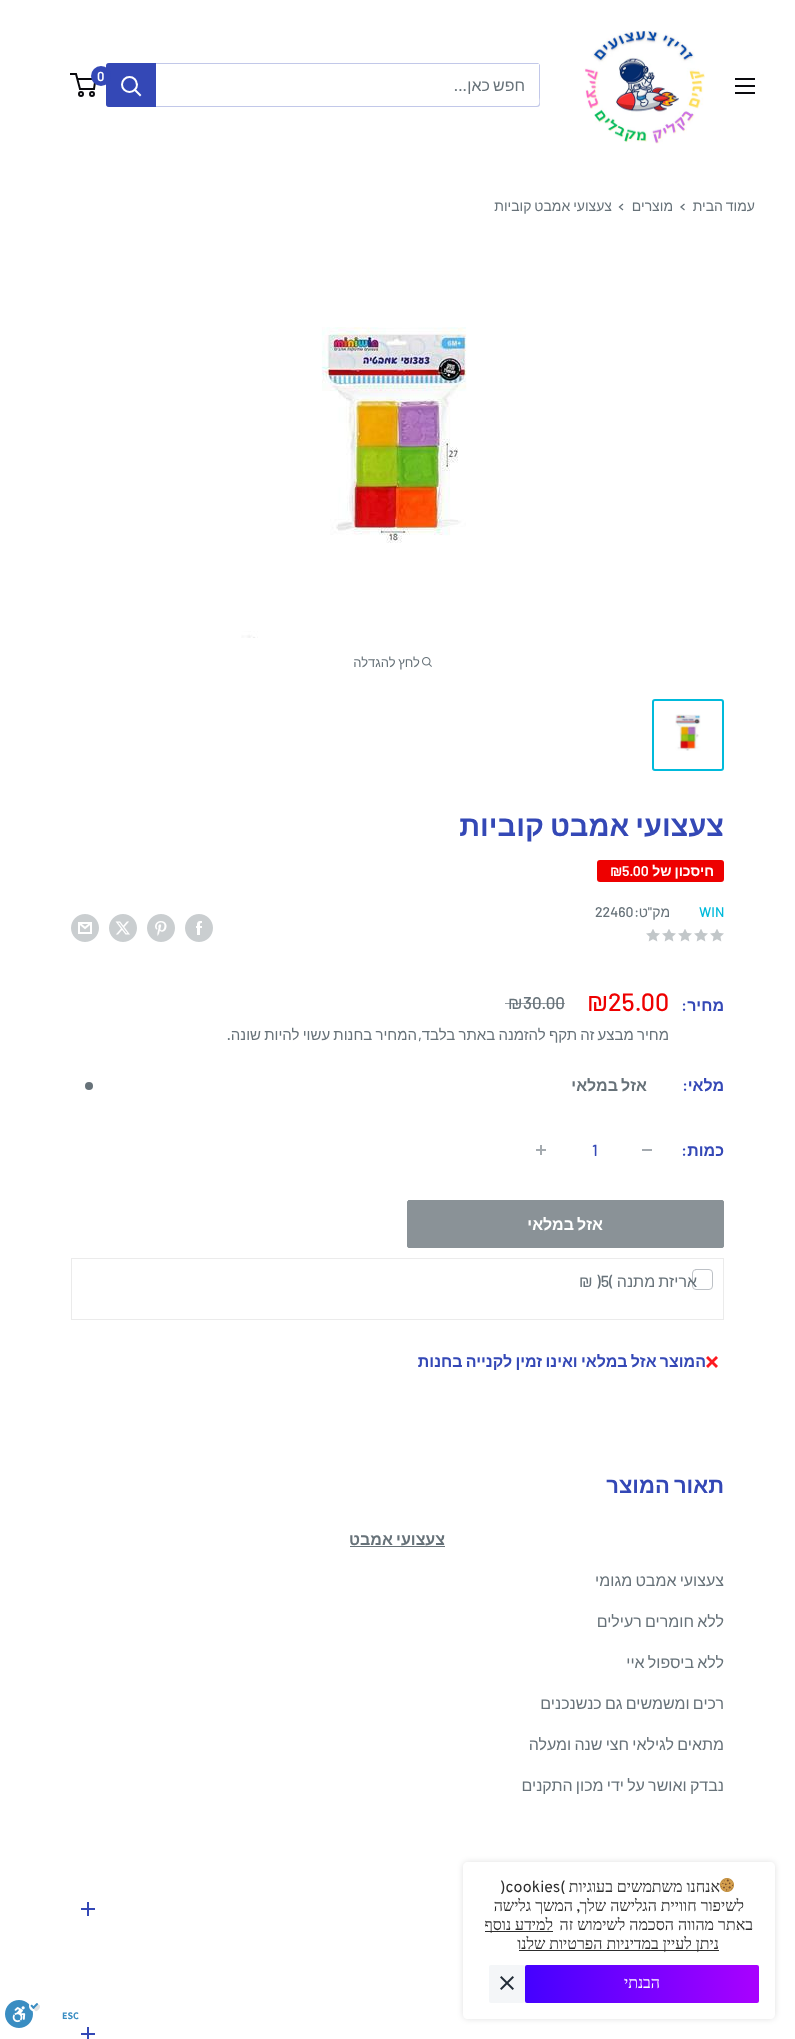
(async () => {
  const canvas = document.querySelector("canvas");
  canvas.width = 795;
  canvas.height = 2039;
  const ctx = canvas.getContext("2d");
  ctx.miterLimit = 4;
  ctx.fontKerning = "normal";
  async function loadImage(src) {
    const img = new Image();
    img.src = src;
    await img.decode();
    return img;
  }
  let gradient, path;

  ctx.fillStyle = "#ffffff";
  ctx.fillRect(0, 0, 795, 2039);
  ctx.drawImage(await loadImage("img/1.png"), 583, 30, 122, 114);
  path = new Path2D("M77.5 79H95.5L94 89H80L76 74H70");
  ctx.strokeStyle = "#0a0a0e";
  ctx.lineWidth = 2;
  ctx.stroke(path);
  ctx.fillStyle = "#c2c8e9";
  path = new Path2D("M107 106C107 107 108 107 109 107H537C539 107 540 106 540 104V66C540 65 540 64 539 64V97C539 99 541 106 536 106Z");
  ctx.fill(path);
  path = new Path2D("M110 64H539C539 63 538 63 537 63H109C107 63 106 64 106 66V104C106 105 106 106 107 106V73C107 71 105 64 110 64Z");
  ctx.fill(path);
  ctx.fillStyle = "#3448b6";
  ctx.beginPath();
  ctx.roundRect(106, 63, 50, 44, [3, 0, 0, 3]);
  ctx.fill();
  ctx.beginPath();
  ctx.arc(101, 76, 10, 0, Math.PI * 2);
  ctx.fill();
  ctx.beginPath();
  ctx.arc(81, 94, 2, 0, Math.PI * 2);
  ctx.stroke();
  ctx.beginPath();
  ctx.arc(92, 94, 2, 0, Math.PI * 2);
  ctx.stroke();
  ctx.drawImage(await loadImage("img/2.png"), 735, 78, 20, 16);
  path = new Path2D("M140 95L135 90");
  ctx.strokeStyle = "#ffffff";
  ctx.lineCap = "square";
  ctx.stroke(path);
  ctx.beginPath();
  ctx.arc(129.5, 84.5, 7.5, 0, Math.PI * 2);
  ctx.stroke();
  path = new Path2D("M684 209.5L681 207L684 204.5");
  ctx.strokeStyle = "#677279";
  ctx.lineWidth = 1.3;
  ctx.stroke(path);
  path = new Path2D("M622.5 209.5L619.5 207L622.5 204.5");
  ctx.stroke(path);
  ctx.drawImage(await loadImage("img/3.png"), 241, 327, 226, 311);
  ctx.drawImage(await loadImage("img/4.png"), 422, 657, 10, 10);
  ctx.beginPath();
  ctx.roundRect(653, 700, 70, 70, 2);
  ctx.strokeStyle = "#00badb";
  ctx.lineWidth = 2;
  ctx.stroke();
  ctx.drawImage(await loadImage("img/5.png"), 675, 714, 26, 37);
  ctx.fillStyle = "#ee0000";
  ctx.beginPath();
  ctx.roundRect(597, 860, 127, 22, 3);
  ctx.fill();
  ctx.drawImage(await loadImage("img/6.png"), 185, 914, 28, 28);
  ctx.drawImage(await loadImage("img/7.png"), 147, 914, 28, 28);
  ctx.drawImage(await loadImage("img/8.png"), 109, 914, 28, 28);
  ctx.drawImage(await loadImage("img/9.png"), 71, 914, 28, 28);
  ctx.drawImage(await loadImage("img/10.png"), 710, 929, 14, 13);
  ctx.drawImage(await loadImage("img/10.png"), 694, 929, 14, 13);
  ctx.drawImage(await loadImage("img/10.png"), 678, 929, 14, 13);
  ctx.drawImage(await loadImage("img/10.png"), 662, 929, 14, 13);
  ctx.drawImage(await loadImage("img/10.png"), 646, 929, 14, 13);
  ctx.fillStyle = "#677279";
  ctx.beginPath();
  ctx.arc(89, 1086, 4, 0, Math.PI * 2);
  ctx.fill();
  ctx.fillStyle = "#a4aaaf";
  ctx.fillRect(642, 1149, 10, 2);
  ctx.drawImage(await loadImage("img/11.png"), 536, 1145, 10, 10);
  ctx.fillStyle = "#8a9297";
  ctx.beginPath();
  ctx.roundRect(407.5, 1200.5, 316, 47, 1.5);
  ctx.fill();
  ctx.strokeStyle = "#8a9297";
  ctx.lineWidth = 1;
  ctx.stroke();
  ctx.strokeStyle = "#ebebeb";
  ctx.strokeRect(71.5, 1258.5, 652, 61);
  ctx.beginPath();
  ctx.roundRect(692.5, 1269.5, 20, 20, 3.5);
  ctx.strokeStyle = "#bdc1c6";
  ctx.stroke();
  for (const [x, y, w, h, color] of [
    [350, 1546, 95, 1, "#677279"],
    [87, 1902, 2, 14, "#3448b6"],
    [81, 1908, 14, 2, "#3448b6"],
    [87, 2027, 2, 12, "#3448b6"],
    [81, 2033, 14, 2, "#3448b6"],
  ]) {
    ctx.fillStyle = color;
    ctx.fillRect(x, y, w, h);
  }
  ctx.save();
  path = new Path2D("M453 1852H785V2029H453ZM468 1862H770C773 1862 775 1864 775 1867V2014C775 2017 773 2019 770 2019H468C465 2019 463 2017 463 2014V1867C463 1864 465 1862 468 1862Z");
  ctx.clip(path, "evenodd");
  ctx.fillStyle = "rgba(0, 0, 0, 0.12)";
  ctx.filter = "blur(3px)";
  ctx.beginPath();
  ctx.roundRect(463, 1862, 312, 157, 5);
  ctx.fill();
  ctx.filter = "none";
  ctx.restore();
  ctx.fillStyle = "#2d2d2d";
  ctx.fillRect(485, 1931, 68, 1);
  ctx.fillRect(519, 1950, 200, 1);
  gradient = ctx.createLinearGradient(525, 1984, 759, 1984);
  gradient.addColorStop(0, "#4401ff");
  gradient.addColorStop(1, "#a901ff");
  ctx.fillStyle = gradient;
  ctx.beginPath();
  ctx.roundRect(525, 1965, 234, 38, 2);
  ctx.fill();
  ctx.fillStyle = "#f4f6f8";
  ctx.beginPath();
  ctx.roundRect(489, 1965, 36, 38, 2);
  ctx.fill();
  ctx.drawImage(await loadImage("img/14.png"), 500, 1976, 14, 14);
  ctx.drawImage(await loadImage("img/15.png"), 5, 2000, 35, 28);
  ctx.font = "600 13px Barlow";
  ctx.fillStyle = "#ffffff";
  ctx.fillText("0", 97, 81);
  ctx.wordSpacing = "-1.25px";
  ctx.direction = "rtl";
  ctx.font = "16px Liberation Sans";
  ctx.fillStyle = "#677279";
  ctx.fillText("חפש כאן", 525, 91);
  ctx.wordSpacing = "0px";
  ctx.font = "500 16px Barlow";
  ctx.fillText("...", 467, 91);
  ctx.wordSpacing = "-1px";
  ctx.font = "14px Liberation Sans";
  ctx.fillText("עמוד הבית", 755, 211);
  ctx.wordSpacing = "0px";
  ctx.fillText("מוצרים", 673, 211);
  ctx.wordSpacing = "-1px";
  ctx.fillText("צעצועי אמבט קוביות", 612, 211);
  ctx.font = "13px Liberation Sans";
  ctx.fillText("לחץ להגדלה", 420, 667);
  ctx.wordSpacing = "-2px";
  ctx.font = "bold 29px Liberation Sans";
  ctx.fillStyle = "#3448b6";
  ctx.fillText("צעצועי אמבט קוביות", 724, 836);
  ctx.wordSpacing = "-1px";
  ctx.font = "bold 14px Liberation Sans";
  ctx.fillStyle = "#ffffff";
  ctx.fillText("חיסכון של", 714, 876);
  ctx.wordSpacing = "0px";
  ctx.direction = "ltr";
  ctx.font = "600 14px Barlow";
  ctx.fillText("5.00", 622, 876);
  ctx.font = "bold 14px Liberation Sans";
  ctx.fillText("₪", 610, 876);
  ctx.font = "500 14px Barlow";
  ctx.fillStyle = "#00badb";
  ctx.fillText("WIN", 699, 917);
  ctx.direction = "rtl";
  ctx.font = "14px Liberation Sans";
  ctx.fillStyle = "#677279";
  ctx.fillText("מק", 670, 917);
  ctx.font = "500 14px Barlow";
  ctx.fillText("\"", 652, 917);
  ctx.font = "14px Liberation Sans";
  ctx.fillText("ט", 648, 917);
  ctx.font = "500 14px Barlow";
  ctx.fillText(":", 639, 917);
  ctx.direction = "ltr";
  ctx.fillText("22460", 595, 917);
  ctx.direction = "rtl";
  ctx.font = "bold 16px Liberation Sans";
  ctx.fillStyle = "#3448b6";
  ctx.fillText("מחיר", 724, 1011);
  ctx.font = "600 16px Barlow";
  ctx.fillText(":", 687, 1011);
  ctx.direction = "ltr";
  ctx.font = "500 25px Barlow";
  ctx.fillStyle = "#ee0000";
  ctx.fillText("25.00", 608, 1011);
  ctx.font = "25px Liberation Sans";
  ctx.fillText("₪", 587, 1011);
  ctx.font = "500 17px Barlow";
  ctx.fillStyle = "#677279";
  ctx.fillText("30.00", 523, 1009);
  ctx.font = "17px Liberation Sans";
  ctx.fillText("₪", 508, 1009);
  ctx.fillStyle = "rgba(103, 114, 121, 0.7)";
  ctx.fillRect(505, 1003, 18, 1);
  ctx.fillRect(523, 1003, 42, 1);
  ctx.wordSpacing = "-1px";
  ctx.direction = "rtl";
  ctx.font = "15px Liberation Sans";
  ctx.fillStyle = "#677279";
  ctx.fillText("מחיר מבצע זה תקף להזמנה באתר בלבד", 669, 1040);
  ctx.fillText("המחיר בחנות עשוי להיות שונה", 417, 1040);
  ctx.wordSpacing = "0px";
  ctx.font = "500 15px Barlow";
  ctx.fillText(",", 422, 1040);
  ctx.fillText(".", 231, 1040);
  ctx.font = "bold 16px Liberation Sans";
  ctx.fillStyle = "#3448b6";
  ctx.fillText("מלאי", 724, 1091);
  ctx.font = "600 16px Barlow";
  ctx.fillText(":", 688, 1091);
  ctx.wordSpacing = "-1.25px";
  ctx.font = "bold 16px Liberation Sans";
  ctx.fillStyle = "#677279";
  ctx.fillText("אזל במלאי", 647, 1091);
  ctx.wordSpacing = "0px";
  ctx.fillStyle = "#3448b6";
  ctx.fillText("כמות", 724, 1156);
  ctx.font = "600 16px Barlow";
  ctx.fillText(":", 687, 1156);
  ctx.direction = "ltr";
  ctx.font = "500 16px Barlow";
  ctx.fillText("1", 592, 1156);
  ctx.wordSpacing = "-1.25px";
  ctx.direction = "rtl";
  ctx.font = "bold 16px Liberation Sans";
  ctx.fillStyle = "#ffffff";
  ctx.fillText("אזל במלאי", 603, 1230);
  ctx.font = "16px Liberation Sans";
  ctx.fillStyle = "#677279";
  ctx.fillText("אריזת מתנה", 697, 1287);
  ctx.wordSpacing = "0px";
  ctx.direction = "ltr";
  ctx.font = "500 16px Barlow";
  ctx.fillText(")5(", 596, 1287);
  ctx.font = "16px Liberation Sans";
  ctx.fillText("₪", 579, 1287);
  ctx.wordSpacing = "-1.25px";
  ctx.direction = "rtl";
  ctx.font = "bold 16px Liberation Sans";
  ctx.fillStyle = "#3448b6";
  ctx.fillText("המוצר אזל במלאי ואינו זמין לקנייה בחנות", 706, 1367);
  ctx.drawImage(await loadImage("img/12.png"), 706, 1356, 12, 12);
  ctx.wordSpacing = "-2px";
  ctx.font = "bold 22px Liberation Sans";
  ctx.fillText("תאור המוצר", 724, 1493);
  ctx.wordSpacing = "-1.25px";
  ctx.font = "bold 16px Liberation Sans";
  ctx.fillStyle = "#677279";
  ctx.fillText("צעצועי אמבט", 445, 1545);
  ctx.font = "16px Liberation Sans";
  for (const [text, x, y] of [
    ["צעצועי אמבט מגומי", 724, 1586],
    ["ללא חומרים רעילים", 724, 1627],
    ["ללא ביספול איי", 724, 1668],
    ["רכים ומשמשים גם כנשנכנים", 724, 1709],
    ["מתאים לגילאי חצי שנה ומעלה", 724, 1750],
    ["נבדק ואושר על ידי מכון התקנים", 724, 1791],
  ]) {
    ctx.fillText(text, x, y);
  }
  ctx.wordSpacing = "0px";
  ctx.font = "16px Liberation Serif";
  ctx.fillStyle = "#2d2d2d";
  ctx.fillText("אנחנו משתמשים בעוגיות", 720, 1892);
  ctx.drawImage(await loadImage("img/13.png"), 720, 1878, 14, 14);
  ctx.direction = "ltr";
  ctx.font = "16px Overpass";
  ctx.fillText(")cookies(", 500, 1892);
  ctx.direction = "rtl";
  ctx.font = "16px Liberation Serif";
  ctx.fillText("לשיפור חוויית הגלישה שלך", 744, 1911);
  ctx.font = "16px Overpass";
  ctx.fillText(",", 580, 1911);
  ctx.font = "16px Liberation Serif";
  for (const [text, x, y] of [
    ["המשך גלישה", 573, 1911],
    ["באתר מהווה הסכמה לשימוש זה", 753, 1930],
    ["למידע נוסף", 553, 1930],
    ["ניתן לעיין במדיניות הפרטיות שלנו", 719, 1949],
  ]) {
    ctx.fillText(text, x, y);
  }
  ctx.fillStyle = "#ffffff";
  ctx.fillText("הבנתי", 660, 1988);
  ctx.direction = "ltr";
  ctx.font = "bold 10px Assistant";
  ctx.fillStyle = "#3a8dc2";
  ctx.fillText("ESC", 62, 2019);
})();
